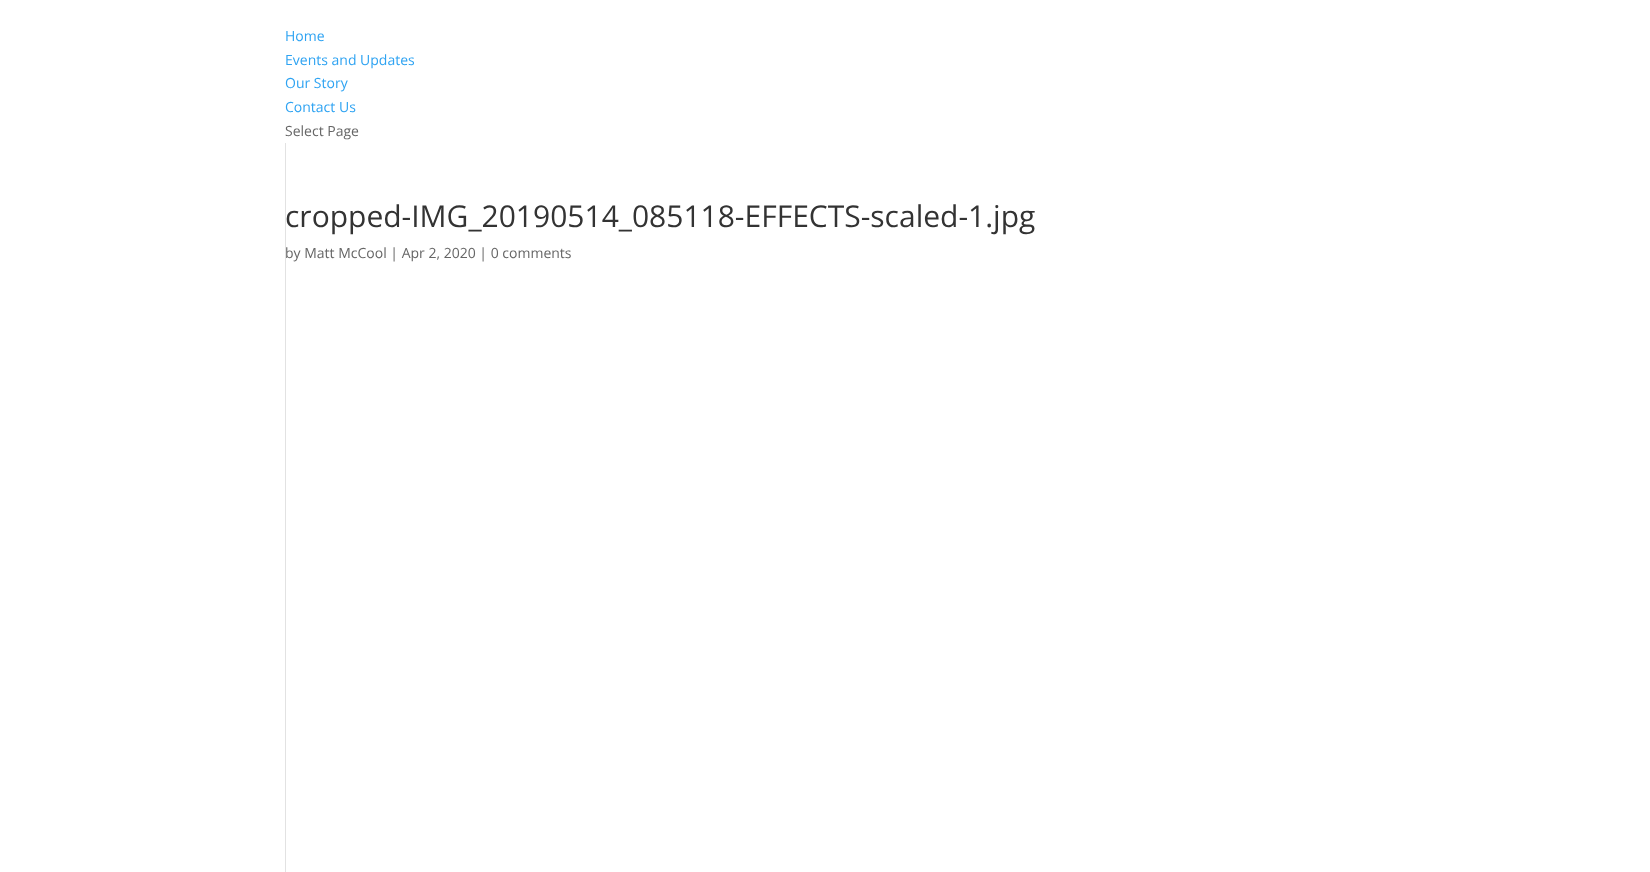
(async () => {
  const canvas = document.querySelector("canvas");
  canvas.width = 1650;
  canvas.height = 872;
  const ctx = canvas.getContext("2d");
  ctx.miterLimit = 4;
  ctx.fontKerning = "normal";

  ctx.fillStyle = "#ffffff";
  ctx.fillRect(0, 0, 1650, 872);
  ctx.fillStyle = "#e2e2e2";
  ctx.fillRect(285, 143, 1, 729);
  ctx.font = "14px Open Sans";
  ctx.fillStyle = "#2ea3f2";
  for (const [text, x, y] of [
    ["Home", 285, 41],
    ["Events and Updates", 285, 65],
    ["Our Story", 285, 88],
    ["Contact Us", 285, 112],
  ]) {
    ctx.fillText(text, x, y);
  }
  ctx.fillStyle = "#666666";
  ctx.fillText("Select Page", 285, 136);
  ctx.font = "30px Open Sans";
  ctx.fillStyle = "#333333";
  ctx.fillText("cropped-IMG_20190514_085118-EFFECTS-scaled-1.jpg", 285, 227);
  ctx.font = "14px Open Sans";
  ctx.fillStyle = "#666666";
  ctx.fillText("by Matt McCool | Apr 2, 2020 | 0 comments", 285, 258);
})();
